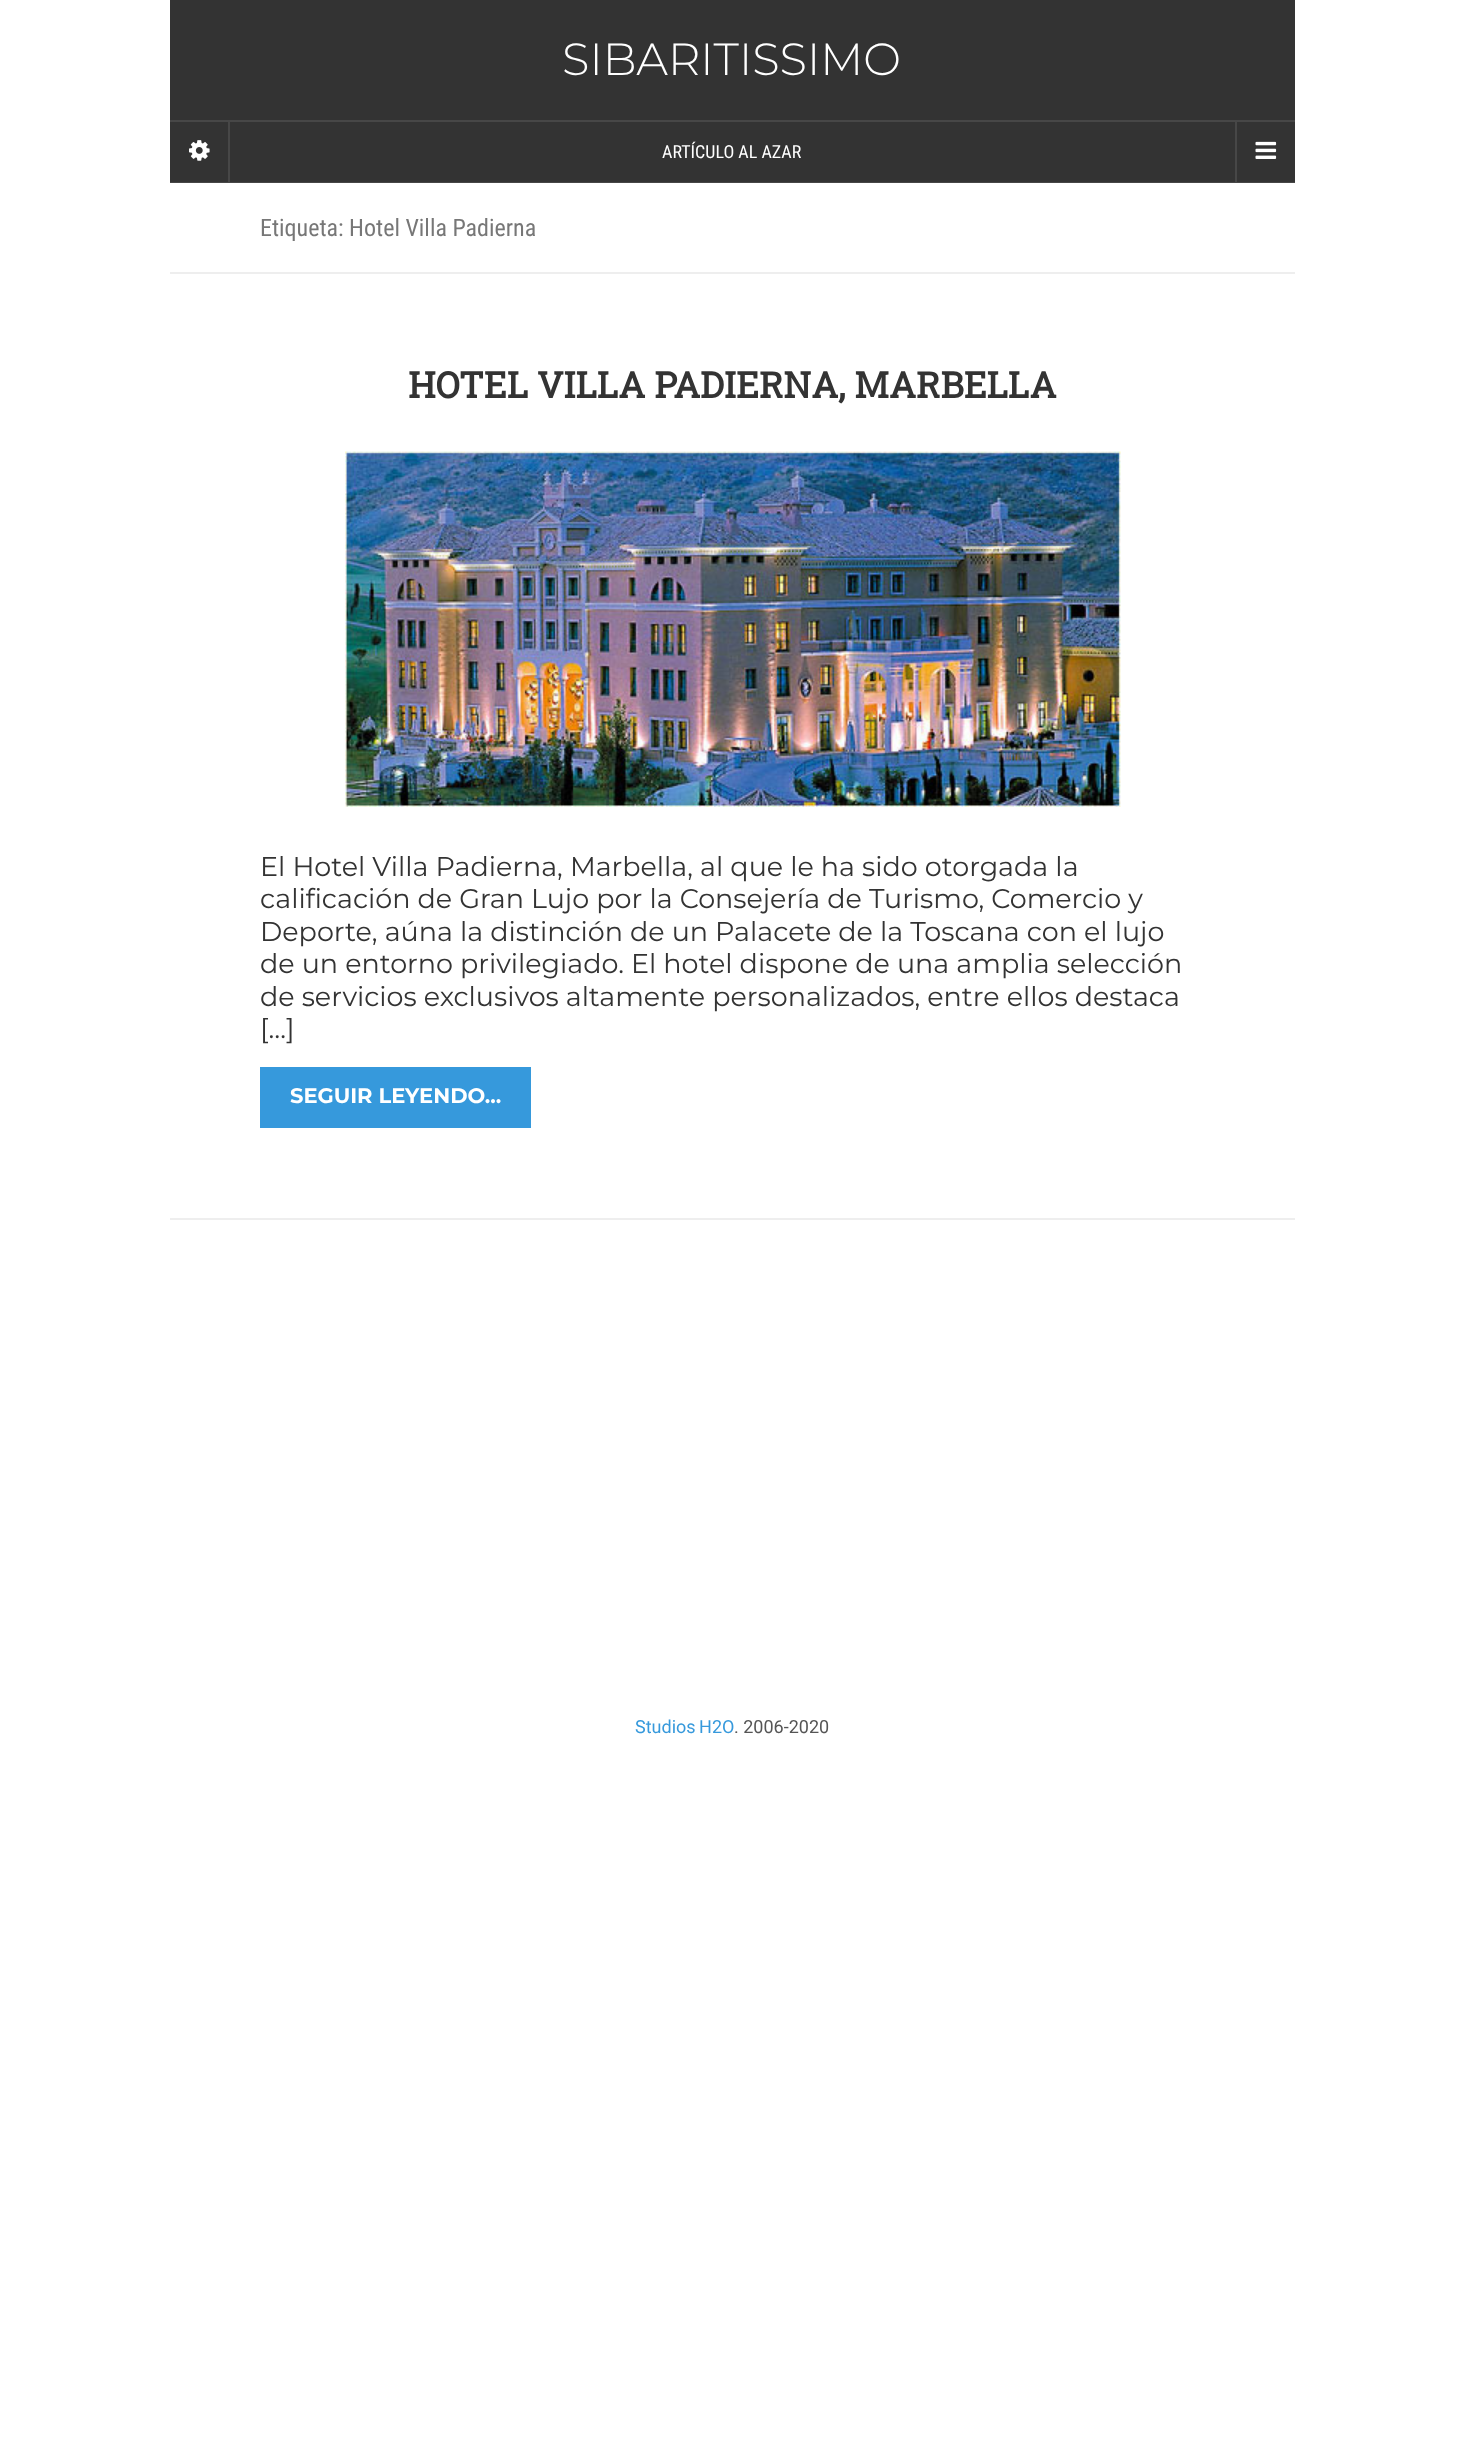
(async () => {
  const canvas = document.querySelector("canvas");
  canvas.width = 1463;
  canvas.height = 2448;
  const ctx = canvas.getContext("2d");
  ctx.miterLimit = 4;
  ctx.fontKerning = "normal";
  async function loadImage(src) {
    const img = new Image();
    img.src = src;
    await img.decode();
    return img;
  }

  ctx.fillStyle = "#ffffff";
  ctx.fillRect(0, 0, 1463, 2448);
  ctx.fillStyle = "#333333";
  ctx.fillRect(170, 0, 1125, 182);
  ctx.fillStyle = "#474747";
  ctx.fillRect(228, 122, 2, 60);
  ctx.drawImage(await loadImage("img/1.png"), 189, 140, 21, 21);
  for (const [x, y, w, h, color] of [
    [170, 182, 1125, 1, "#474747"],
    [170, 120, 1125, 2, "#474747"],
    [1235, 122, 2, 60, "#474747"],
  ]) {
    ctx.fillStyle = color;
    ctx.fillRect(x, y, w, h);
  }
  ctx.drawImage(await loadImage("img/2.png"), 1255, 141, 22, 18);
  ctx.fillStyle = "#eeeeee";
  ctx.fillRect(170, 272, 1125, 2);
  ctx.fillRect(170, 1218, 1125, 2);
  ctx.drawImage(await loadImage("img/3.png"), 345, 451, 776, 356);
  ctx.fillStyle = "#3699dc";
  ctx.fillRect(260, 1067, 271, 61);
  ctx.font = "300 45px Montserrat";
  ctx.fillStyle = "#ffffff";
  ctx.fillText("SIBARITISSIMO", 562, 75);
  ctx.font = "18px Roboto Condensed";
  ctx.fillText("ARTÍCULO AL AZAR", 662, 158);
  ctx.font = "24px Roboto Condensed";
  ctx.fillStyle = "#777777";
  ctx.fillText("Etiqueta: Hotel Villa Padierna", 260, 236);
  ctx.font = "bold 36px Roboto Slab";
  ctx.fillStyle = "#333333";
  ctx.fillText("HOTEL VILLA PADIERNA, MARBELLA", 408, 398);
  ctx.font = "27px Montserrat";
  for (const [text, x, y] of [
    ["El Hotel Villa Padierna, Marbella, al que le ha sido otorgada la", 260, 876],
    ["calificación de Gran Lujo por la Consejería de Turismo, Comercio y", 260, 908],
    ["Deporte, aúna la distinción de un Palacete de la Toscana con el lujo", 260, 941],
    ["de un entorno privilegiado. El hotel dispone de una amplia selección", 260, 973],
    ["de servicios exclusivos altamente personalizados, entre ellos destaca", 260, 1006],
    ["[…]", 260, 1038],
  ]) {
    ctx.fillText(text, x, y);
  }
  ctx.font = "bold 21px Montserrat";
  ctx.fillStyle = "#ffffff";
  ctx.fillText("SEGUIR LEYENDO...", 290, 1103);
  ctx.wordSpacing = "-1px";
  ctx.font = "18px Roboto";
  ctx.fillStyle = "#3699dc";
  ctx.fillText("Studios H2O", 635, 1733);
  ctx.wordSpacing = "0px";
  ctx.fillStyle = "#555555";
  ctx.fillText(". 2006-2020", 734, 1733);
})();
